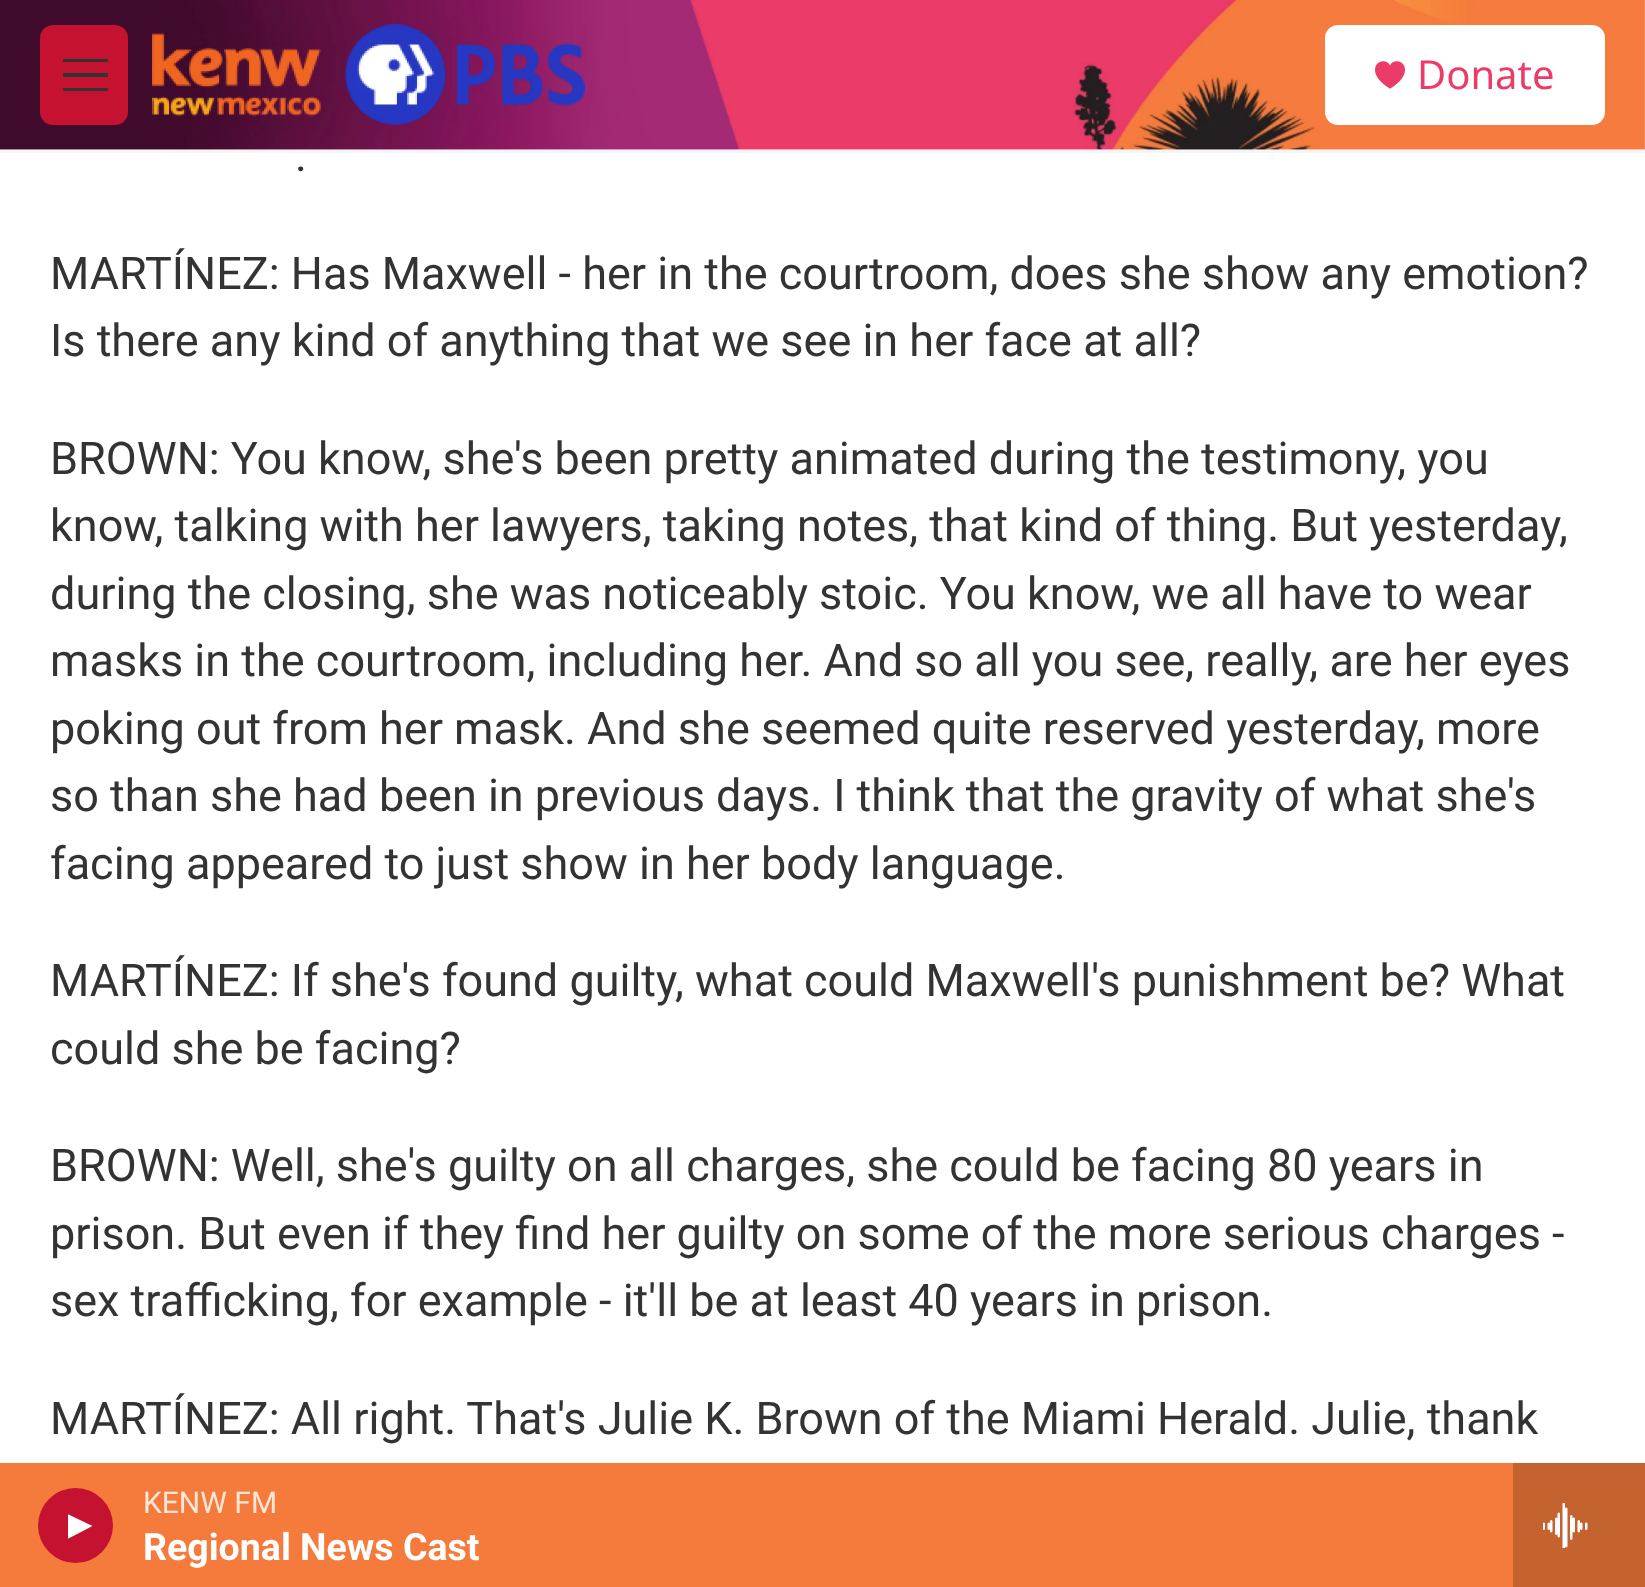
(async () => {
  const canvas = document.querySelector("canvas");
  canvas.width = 1645;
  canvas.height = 1587;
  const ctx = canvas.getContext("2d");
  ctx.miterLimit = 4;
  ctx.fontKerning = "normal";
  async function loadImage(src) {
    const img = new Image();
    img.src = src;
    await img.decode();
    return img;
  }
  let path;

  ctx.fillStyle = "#ffffff";
  ctx.fillRect(0, 0, 1645, 1587);
  ctx.fillStyle = "#f5f5f5";
  ctx.fillRect(0, 150, 1645, 3);
  ctx.drawImage(await loadImage("img/1.png"), 0, 0, 1645, 150);
  ctx.fillStyle = "#c41230";
  ctx.beginPath();
  ctx.roundRect(40, 25, 88, 100, 13);
  ctx.fill();
  ctx.save();
  ctx.beginPath();
  ctx.rect(63, 53, 45, 45);
  ctx.clip();
  ctx.fillStyle = "#333333";
  path = new Path2D("M62 77V73H108V77ZM62 62V59H108V62ZM62 91V88H108V91Z");
  ctx.fill(path, "evenodd");
  ctx.restore();
  ctx.drawImage(await loadImage("img/2.png"), 152, 24, 433, 101);
  ctx.fillStyle = "#ffffff";
  ctx.beginPath();
  ctx.roundRect(1325, 25, 280, 100, 13);
  ctx.fill();
  ctx.drawImage(await loadImage("img/3.png"), 1375, 61, 30, 28);
  ctx.fillStyle = "#f57b3c";
  ctx.fillRect(0, 1463, 1513, 124);
  ctx.fillStyle = "#c41230";
  ctx.beginPath();
  ctx.arc(75.5, 1525.5, 37.5, 0, Math.PI * 2);
  ctx.fill();
  ctx.save();
  ctx.beginPath();
  ctx.rect(68, 1513, 25, 27);
  ctx.clip();
  ctx.fillStyle = "#ffffff";
  path = new Path2D("M67.5 1514L92.5 1526L67.5 1539Z");
  ctx.fill(path);
  ctx.restore();
  ctx.fillStyle = "#c46230";
  ctx.fillRect(1513, 1463, 132, 124);
  ctx.drawImage(await loadImage("img/4.png"), 1543, 1503, 45, 45);
  ctx.font = "40px Noto Sans";
  ctx.fillStyle = "#eb3b69";
  ctx.fillText("Donate", 1417, 89);
  ctx.font = "30px Roboto";
  ctx.fillStyle = "#fde5d8";
  ctx.fillText("KENW FM", 143, 1513);
  ctx.font = "bold 37.5px Roboto";
  ctx.fillStyle = "#ffffff";
  ctx.fillText("Regional News Cast", 143, 1560);
  ctx.font = "45px Roboto";
  ctx.fillStyle = "#333333";
  for (const [text, x, y] of [
    [".", 295, 171],
    ["MARTÍNEZ: Has Maxwell - her in the courtroom, does she show any emotion?", 50, 289],
    ["Is there any kind of anything that we see in her face at all?", 50, 356],
    ["BROWN: You know, she's been pretty animated during the testimony, you", 50, 474],
    ["know, talking with her lawyers, taking notes, that kind of thing. But yesterday,", 50, 541],
    ["during the closing, she was noticeably stoic. You know, we all have to wear", 50, 609],
    ["masks in the courtroom, including her. And so all you see, really, are her eyes", 50, 676],
    ["poking out from her mask. And she seemed quite reserved yesterday, more", 50, 744],
    ["so than she had been in previous days. I think that the gravity of what she's", 50, 811],
    ["facing appeared to just show in her body language.", 50, 879],
    ["MARTÍNEZ: If she's found guilty, what could Maxwell's punishment be? What", 50, 996],
    ["could she be facing?", 50, 1064],
    ["BROWN: Well, she's guilty on all charges, she could be facing 80 years in", 50, 1181],
    ["prison. But even if they find her guilty on some of the more serious charges -", 50, 1249],
    ["sex trafficking, for example - it'll be at least 40 years in prison.", 50, 1316],
    ["MARTÍNEZ: All right. That's Julie K. Brown of the Miami Herald. Julie, thank", 50, 1434],
  ]) {
    ctx.fillText(text, x, y);
  }
})();
